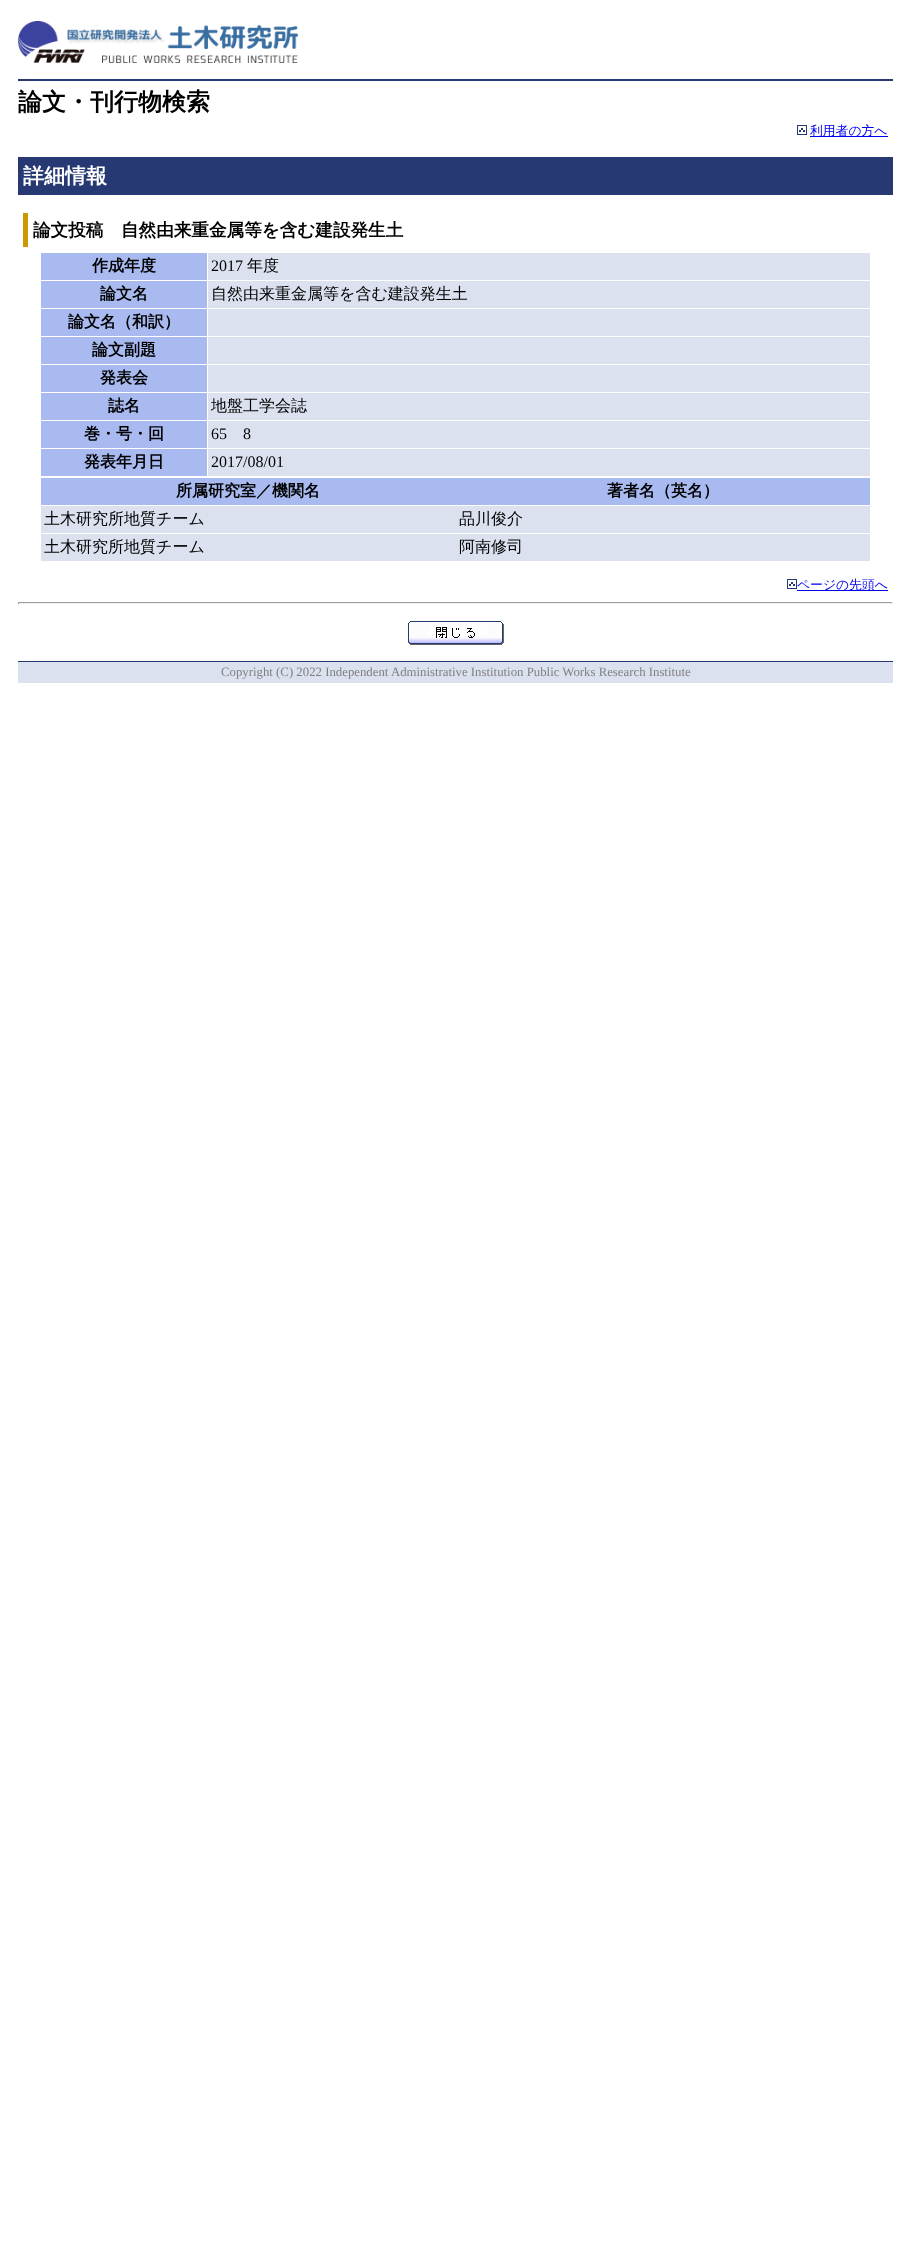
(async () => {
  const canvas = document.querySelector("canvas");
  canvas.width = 911;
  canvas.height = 2257;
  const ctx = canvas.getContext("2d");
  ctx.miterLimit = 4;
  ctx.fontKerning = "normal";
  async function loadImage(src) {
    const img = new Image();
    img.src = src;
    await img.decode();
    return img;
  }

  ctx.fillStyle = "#ffffff";
  ctx.fillRect(0, 0, 911, 2257);
  ctx.fillStyle = "#263973";
  ctx.fillRect(18, 79, 875, 2);
  ctx.drawImage(await loadImage("img/1.png"), 18, 21, 280, 42);
  ctx.drawImage(await loadImage("img/2.png"), 797, 125, 10, 10);
  for (const [x, y, w, h, color] of [
    [810, 136, 78, 1, "#0000ee"],
    [18, 157, 875, 38, "#263973"],
    [23, 213, 5, 34, "#cc9900"],
    [41, 253, 166, 27, "#a8baf0"],
    [208, 253, 662, 27, "#dce1f0"],
    [41, 281, 166, 27, "#a8baf0"],
    [208, 281, 662, 27, "#dce1f0"],
    [41, 309, 166, 27, "#a8baf0"],
    [208, 309, 662, 27, "#dce1f0"],
    [41, 337, 166, 27, "#a8baf0"],
    [208, 337, 662, 27, "#dce1f0"],
    [41, 365, 166, 27, "#a8baf0"],
    [208, 365, 662, 27, "#dce1f0"],
    [41, 393, 166, 27, "#a8baf0"],
    [208, 393, 662, 27, "#dce1f0"],
    [41, 421, 166, 27, "#a8baf0"],
    [208, 421, 662, 27, "#dce1f0"],
    [41, 449, 166, 27, "#a8baf0"],
    [208, 449, 662, 27, "#dce1f0"],
    [41, 478, 829, 27, "#a8baf0"],
    [41, 506, 829, 27, "#dce1f0"],
    [41, 534, 829, 27, "#dce1f0"],
  ]) {
    ctx.fillStyle = color;
    ctx.fillRect(x, y, w, h);
  }
  ctx.drawImage(await loadImage("img/2.png"), 787, 579, 10, 10);
  for (const [x, y, w, h, color] of [
    [797, 590, 91, 1, "#0000ee"],
    [18, 602, 875, 1, "#9f9f9f"],
    [892, 602, 1, 2, "#eeeeee"],
    [18, 603, 875, 1, "#eeeeee"],
    [18, 602, 1, 2, "#9f9f9f"],
  ]) {
    ctx.fillStyle = color;
    ctx.fillRect(x, y, w, h);
  }
  ctx.drawImage(await loadImage("img/3.png"), 408, 621, 96, 24);
  ctx.fillStyle = "#dce1f0";
  ctx.fillRect(18, 662, 875, 21);
  ctx.fillStyle = "#263973";
  ctx.fillRect(18, 661, 875, 1);
  ctx.font = "bold 24px WenQuanYi Zen Hei";
  ctx.fillStyle = "#000000";
  ctx.fillText("論文・刊行物検索", 18, 110);
  ctx.font = "500 12.8px WenQuanYi Zen Hei";
  ctx.fillStyle = "#0000ee";
  ctx.fillText("利用者の方へ", 810, 135);
  ctx.font = "bold 21px WenQuanYi Zen Hei";
  ctx.fillStyle = "#ffffff";
  ctx.fillText("詳細情報", 23, 183);
  ctx.font = "bold 17.6px WenQuanYi Zen Hei";
  ctx.fillStyle = "#000000";
  ctx.fillText("論文投稿　自然由来重金属等を含む建設発生土", 33, 236);
  ctx.font = "bold 16px WenQuanYi Zen Hei";
  ctx.fillText("作成年度", 92, 271);
  ctx.font = "16px Liberation Serif";
  ctx.fillText("2017", 211, 271);
  ctx.font = "500 16px WenQuanYi Zen Hei";
  ctx.fillText("年度", 247, 271);
  ctx.font = "bold 16px WenQuanYi Zen Hei";
  ctx.fillText("論文名", 100, 299);
  ctx.font = "500 16px WenQuanYi Zen Hei";
  ctx.fillText("自然由来重金属等を含む建設発生土", 211, 299);
  ctx.font = "bold 16px WenQuanYi Zen Hei";
  for (const [text, x, y] of [
    ["論文名（和訳）", 68, 327],
    ["論文副題", 92, 355],
    ["発表会", 100, 383],
    ["誌名", 108, 411],
  ]) {
    ctx.fillText(text, x, y);
  }
  ctx.font = "500 16px WenQuanYi Zen Hei";
  ctx.fillText("地盤工学会誌", 211, 411);
  ctx.font = "bold 16px WenQuanYi Zen Hei";
  ctx.fillText("巻・号・回", 84, 439);
  ctx.font = "16px Liberation Serif";
  ctx.fillText("65", 211, 439);
  ctx.fillText("8", 243, 439);
  ctx.font = "bold 16px WenQuanYi Zen Hei";
  ctx.fillText("発表年月日", 84, 467);
  ctx.font = "16px Liberation Serif";
  ctx.fillText("2017/08/01", 211, 467);
  ctx.font = "bold 16px WenQuanYi Zen Hei";
  ctx.fillText("所属研究室／機関名", 176, 496);
  ctx.fillText("著者名（英名）", 607, 496);
  ctx.font = "500 16px WenQuanYi Zen Hei";
  for (const [text, x, y] of [
    ["土木研究所地質チーム", 44, 524],
    ["品川俊介", 459, 524],
    ["土木研究所地質チーム", 44, 552],
    ["阿南修司", 459, 552],
  ]) {
    ctx.fillText(text, x, y);
  }
  ctx.font = "500 12.8px WenQuanYi Zen Hei";
  ctx.fillStyle = "#0000ee";
  ctx.fillText("ページの先頭へ", 797, 589);
  ctx.font = "12.8px Liberation Serif";
  ctx.fillStyle = "#808080";
  ctx.fillText("Copyright (C) 2022 Independent Administrative Institution Public Works Research Institute", 221, 676);
})();
